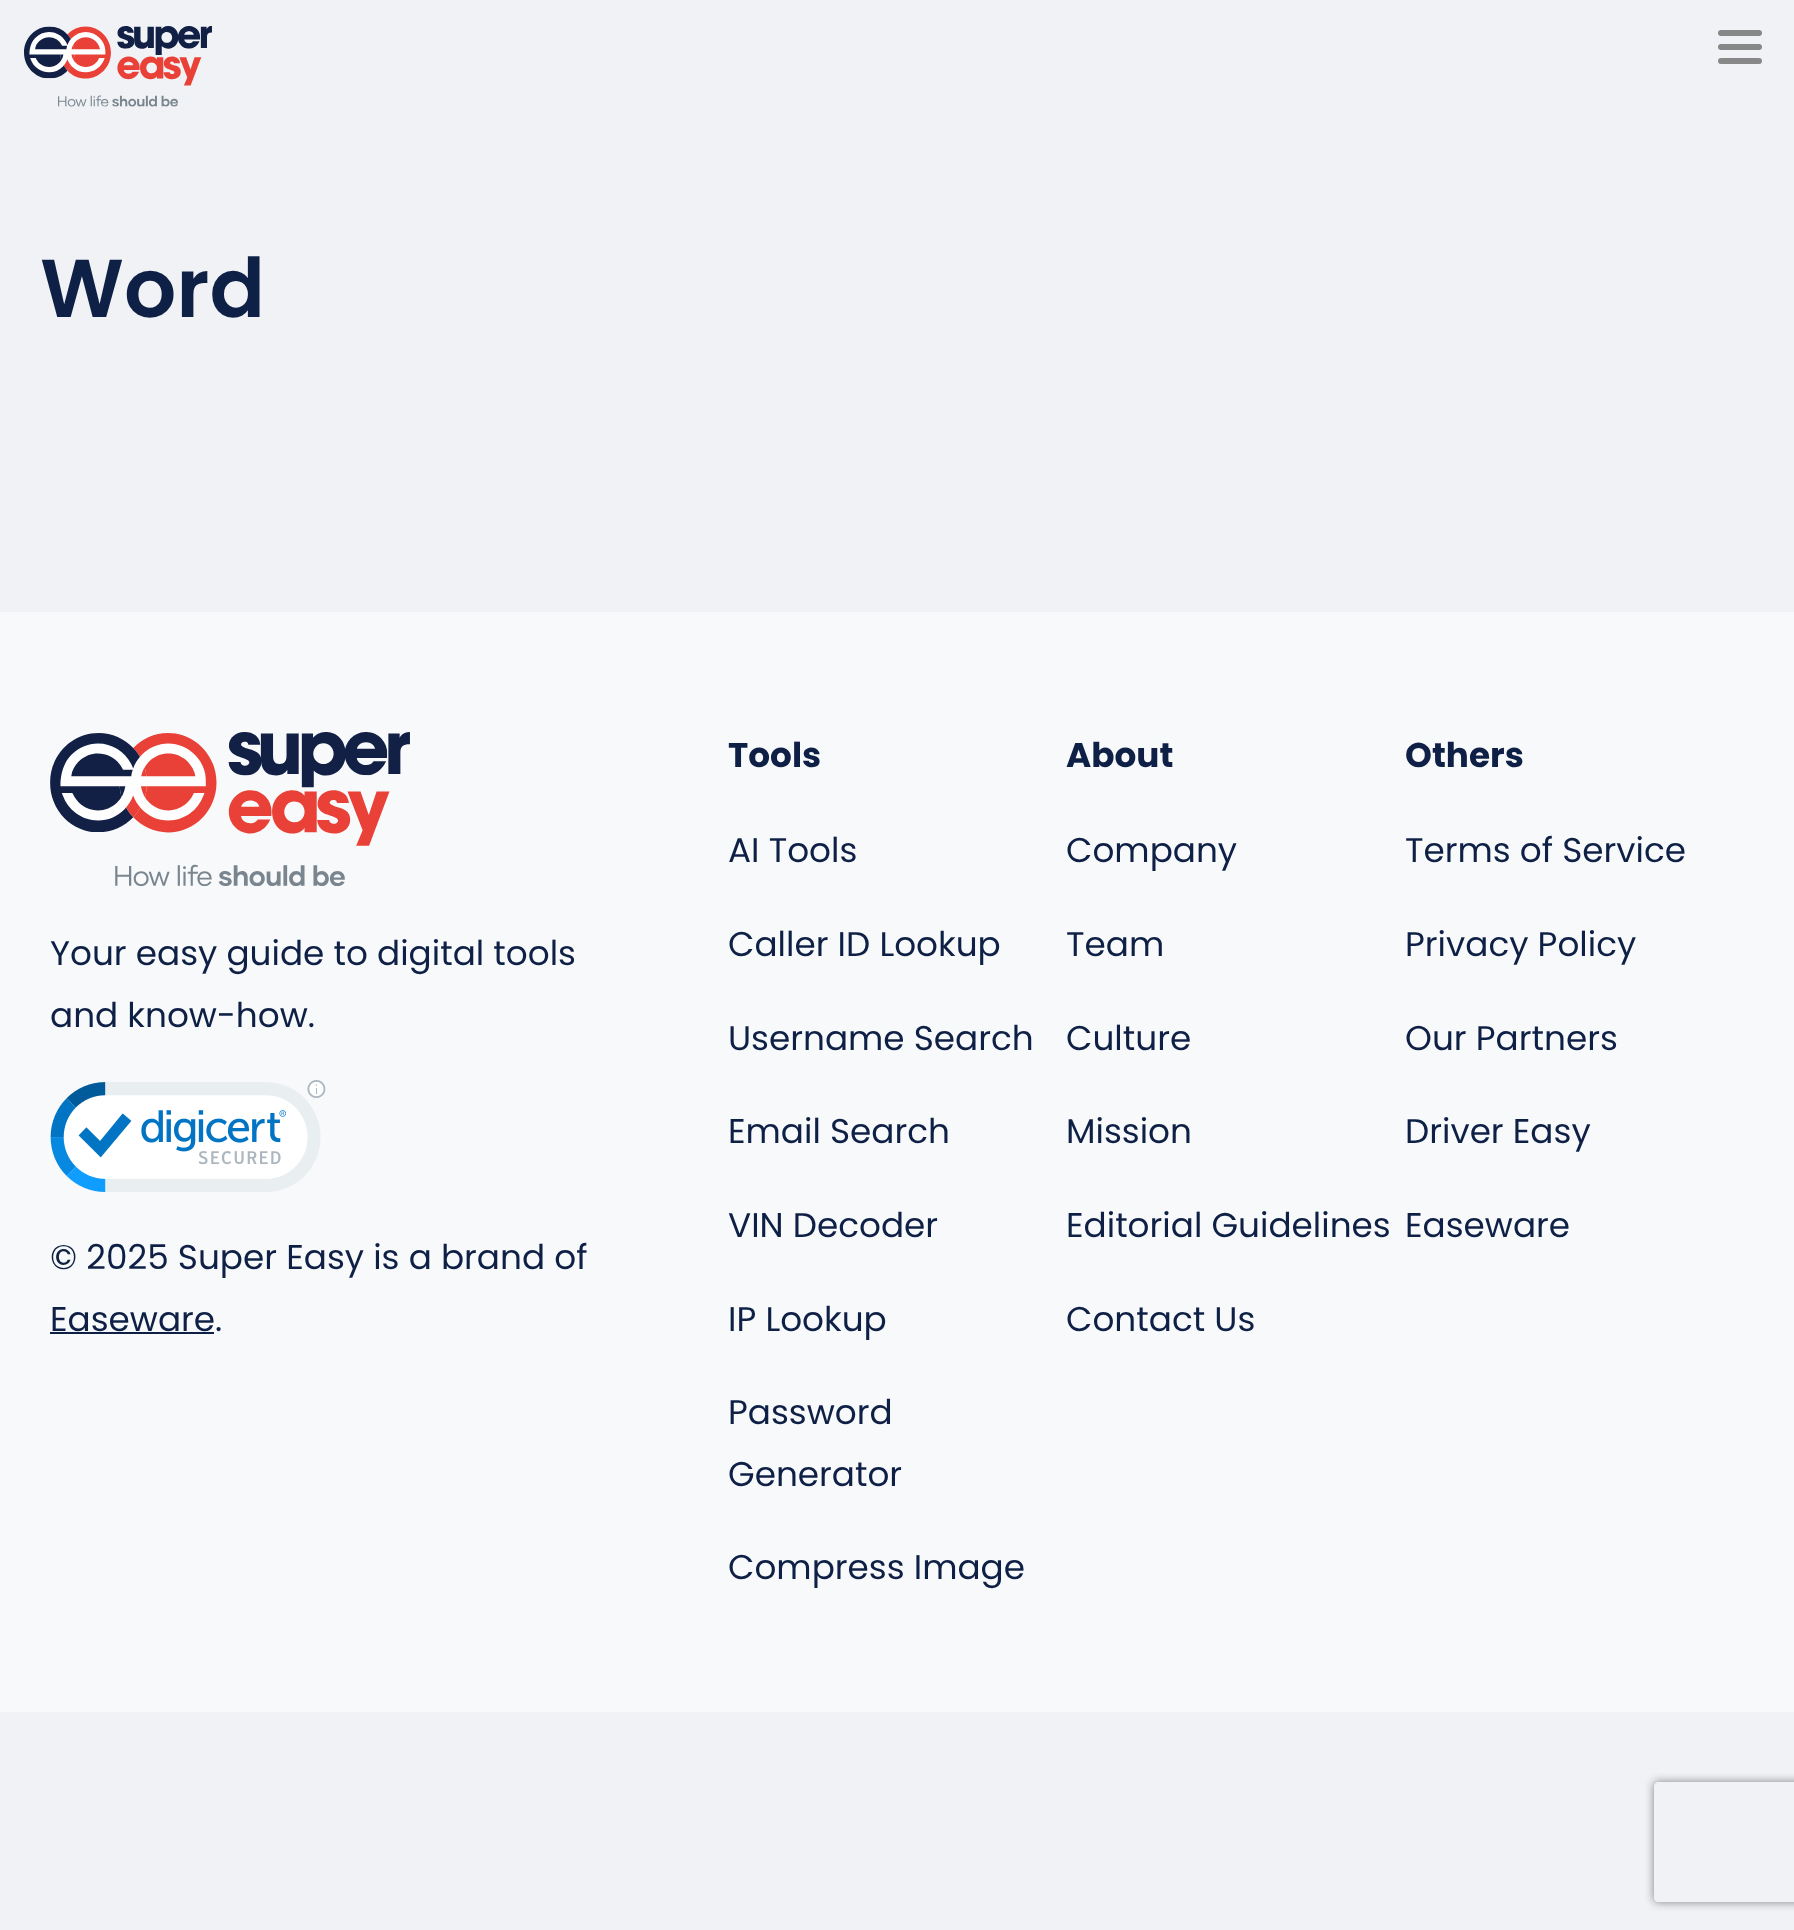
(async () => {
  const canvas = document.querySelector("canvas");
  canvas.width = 1794;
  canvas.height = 1930;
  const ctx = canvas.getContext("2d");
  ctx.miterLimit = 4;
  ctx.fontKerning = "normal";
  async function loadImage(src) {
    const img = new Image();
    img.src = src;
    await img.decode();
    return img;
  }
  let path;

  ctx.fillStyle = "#f0f2f5";
  ctx.fillRect(0, 0, 1794, 1930);
  ctx.drawImage(await loadImage("img/1.png"), 24, 26, 188, 81);
  ctx.fillStyle = "#888888";
  ctx.beginPath();
  ctx.roundRect(1718, 58, 44, 6, 3);
  ctx.fill();
  ctx.beginPath();
  ctx.roundRect(1718, 30, 44, 6, 3);
  ctx.fill();
  ctx.beginPath();
  ctx.roundRect(1718, 44, 44, 6, 3);
  ctx.fill();
  ctx.fillStyle = "#f8f9fa";
  ctx.fillRect(0, 612, 1794, 1100);
  ctx.drawImage(await loadImage("img/2.png"), 50, 732, 360, 155);
  ctx.drawImage(await loadImage("img/3.png"), 50, 1080, 276, 112);
  ctx.fillStyle = "#0e2045";
  ctx.fillRect(50, 1332, 164, 2);
  ctx.save();
  path = new Path2D("M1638 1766H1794V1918H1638ZM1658 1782H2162C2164 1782 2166 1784 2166 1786V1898C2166 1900 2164 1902 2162 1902H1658C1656 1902 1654 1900 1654 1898V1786C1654 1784 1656 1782 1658 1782Z");
  ctx.clip(path, "evenodd");
  ctx.fillStyle = "#808080";
  ctx.filter = "blur(5px)";
  ctx.beginPath();
  ctx.roundRect(1654, 1782, 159, 120, 4);
  ctx.fill();
  ctx.filter = "none";
  ctx.restore();
  ctx.font = "600 82px Poppins";
  ctx.fillText("Word", 40, 317);
  ctx.font = "34.25px Poppins";
  for (const [text, x, y] of [
    ["Your easy guide to digital tools", 50, 965],
    ["and know-how.", 50, 1027],
    ["© 2025 Super Easy is a brand of", 50, 1269],
    ["Easeware.", 50, 1331],
  ]) {
    ctx.fillText(text, x, y);
  }
  ctx.font = "bold 34.25px Poppins";
  ctx.fillText("Tools", 728, 767);
  ctx.font = "34.25px Poppins";
  for (const [text, x, y] of [
    ["AI Tools", 728, 862],
    ["Caller ID Lookup", 728, 956],
    ["Username Search", 728, 1050],
    ["Email Search", 728, 1143],
    ["VIN Decoder", 728, 1237],
    ["IP Lookup", 728, 1331],
    ["Password", 728, 1424],
    ["Generator", 728, 1486],
    ["Compress Image", 728, 1579],
  ]) {
    ctx.fillText(text, x, y);
  }
  ctx.font = "bold 34.25px Poppins";
  ctx.fillText("About", 1066, 767);
  ctx.font = "34.25px Poppins";
  for (const [text, x, y] of [
    ["Company", 1066, 862],
    ["Team", 1066, 956],
    ["Culture", 1066, 1050],
    ["Mission", 1066, 1143],
    ["Editorial Guidelines", 1066, 1237],
    ["Contact Us", 1066, 1331],
  ]) {
    ctx.fillText(text, x, y);
  }
  ctx.font = "bold 34.25px Poppins";
  ctx.fillText("Others", 1405, 767);
  ctx.font = "34.25px Poppins";
  for (const [text, x, y] of [
    ["Terms of Service", 1405, 862],
    ["Privacy Policy", 1405, 956],
    ["Our Partners", 1405, 1050],
    ["Driver Easy", 1405, 1143],
    ["Easeware", 1405, 1237],
  ]) {
    ctx.fillText(text, x, y);
  }
})();
